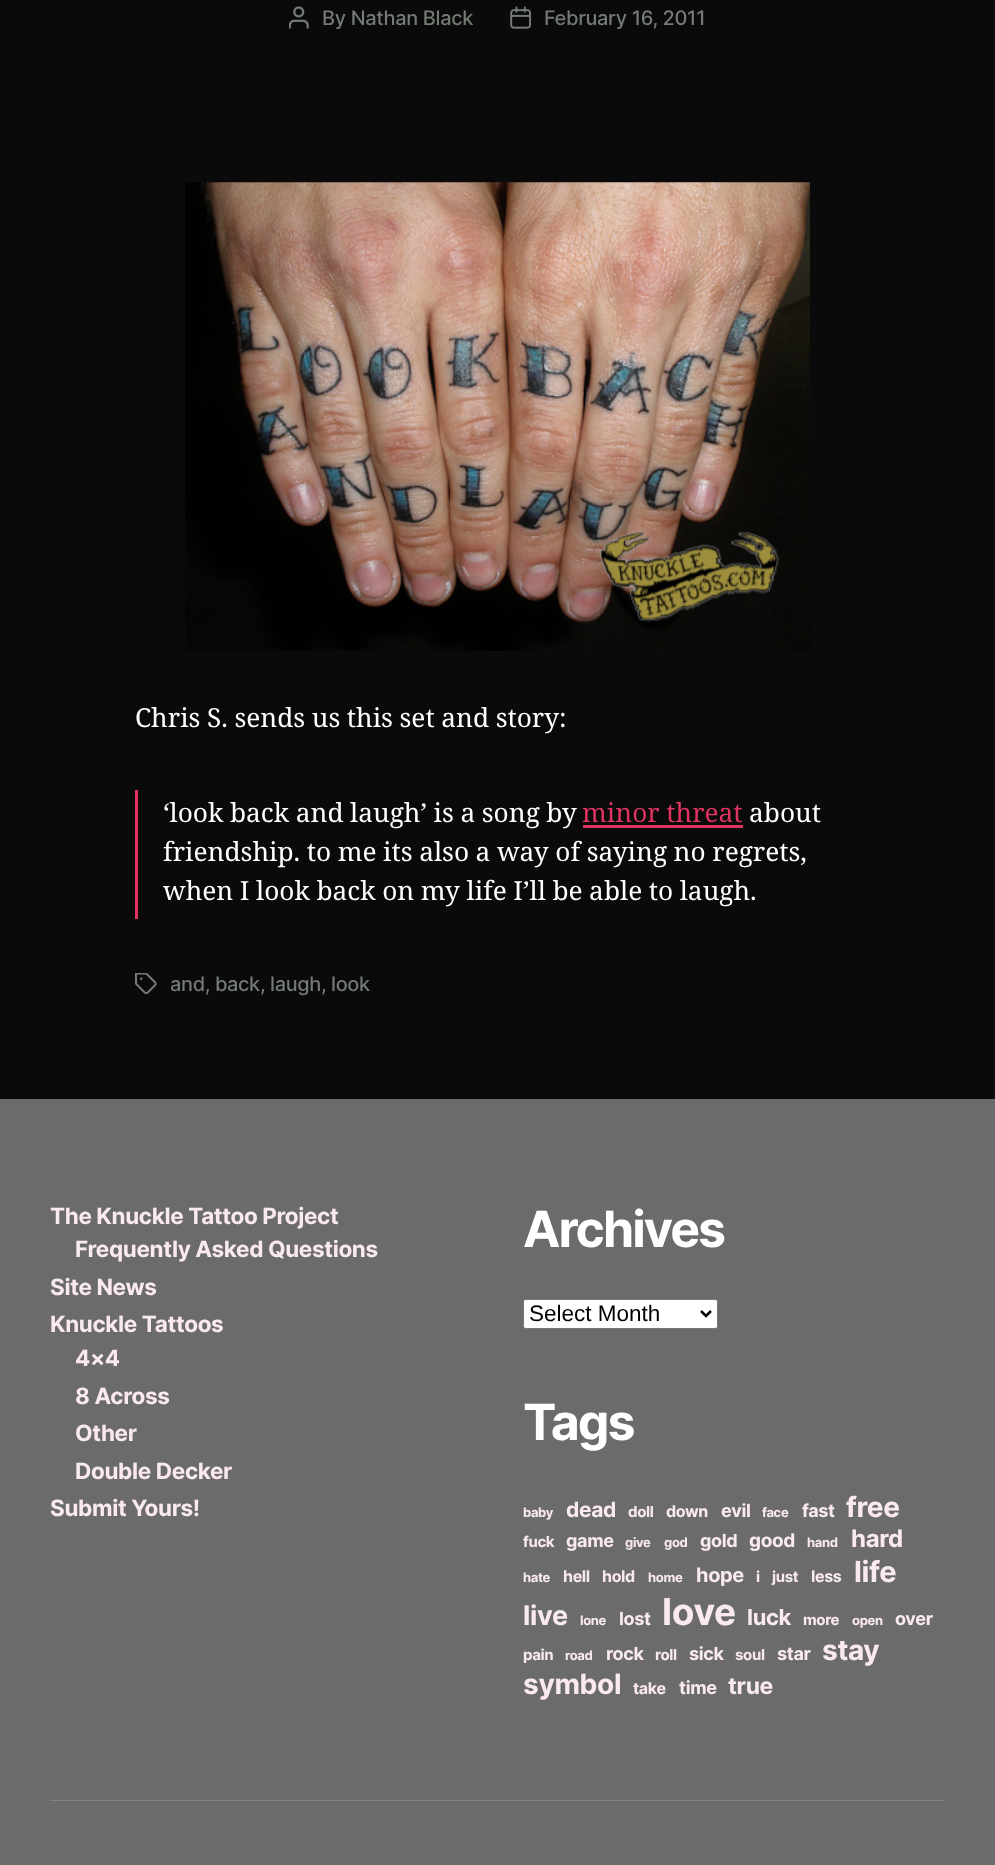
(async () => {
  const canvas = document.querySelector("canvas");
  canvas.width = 995;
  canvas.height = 1865;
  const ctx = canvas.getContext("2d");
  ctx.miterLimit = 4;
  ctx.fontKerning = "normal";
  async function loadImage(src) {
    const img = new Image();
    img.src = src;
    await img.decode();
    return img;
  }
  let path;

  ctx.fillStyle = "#090a09";
  ctx.fillRect(0, 0, 995, 1865);
  ctx.drawImage(await loadImage("img/1.png"), 289, 6, 20, 23);
  ctx.drawImage(await loadImage("img/2.png"), 510, 6, 21, 23);
  ctx.drawImage(await loadImage("img/3.png"), 185, 182, 625, 469);
  ctx.fillStyle = "#df3461";
  ctx.fillRect(135, 790, 3, 129);
  ctx.fillRect(583, 825, 160, 3);
  ctx.drawImage(await loadImage("img/4.png"), 135, 973, 22, 22);
  ctx.fillStyle = "#6b6b6b";
  ctx.fillRect(0, 1099, 995, 766);
  ctx.fillStyle = "#828282";
  ctx.fillRect(50, 1800, 895, 1);
  ctx.fillStyle = "#ffffff";
  ctx.beginPath();
  ctx.roundRect(523.5, 1299.5, 194, 29, 2);
  ctx.fill();
  ctx.strokeStyle = "#767676";
  ctx.stroke();
  path = new Path2D("M701 1311L706 1316L711 1311");
  ctx.strokeStyle = "#000000";
  ctx.lineWidth = 2.5;
  ctx.stroke(path);
  ctx.letterSpacing = "-0.35px";
  ctx.font = "500 20px Inter";
  ctx.fillStyle = "#747a74";
  ctx.fillText("By Nathan Black", 322, 25);
  ctx.fillText("February 16, 2011", 544, 25);
  ctx.letterSpacing = "0px";
  ctx.wordSpacing = "-0.25px";
  ctx.font = "26.25px Noto Serif";
  ctx.fillStyle = "#ffffff";
  ctx.fillText("Chris S. sends us this set and story:", 135, 727);
  ctx.fillText("‘look back and laugh’ is a song by", 163, 822);
  ctx.fillStyle = "#df3461";
  ctx.fillText("minor threat", 582, 822);
  ctx.wordSpacing = "0px";
  ctx.fillStyle = "#ffffff";
  ctx.fillText("about", 749, 822);
  ctx.wordSpacing = "-0.25px";
  ctx.fillText("friendship. to me its also a way of saying no regrets,", 163, 861);
  ctx.fillText("when I look back on my life I’ll be able to laugh.", 163, 900);
  ctx.letterSpacing = "-0.35px";
  ctx.wordSpacing = "0px";
  ctx.font = "500 20px Inter";
  ctx.fillStyle = "#747a74";
  ctx.fillText("and, back, laugh, look", 170, 991);
  ctx.font = "bold 22.5px Inter";
  ctx.fillStyle = "#faeaed";
  for (const [text, x, y] of [
    ["The Knuckle Tattoo Project", 50, 1224],
    ["Frequently Asked Questions", 75, 1257],
    ["Site News", 50, 1295],
    ["Knuckle Tattoos", 50, 1332],
    ["4×4", 75, 1366],
    ["8 Across", 75, 1404],
    ["Other", 75, 1441],
    ["Double Decker", 75, 1479],
    ["Submit Yours!", 50, 1516],
  ]) {
    ctx.fillText(text, x, y);
  }
  ctx.letterSpacing = "-2px";
  ctx.font = "bold 50px Inter";
  ctx.fillStyle = "#ffffff";
  ctx.fillText("Archives", 523, 1247);
  ctx.letterSpacing = "0px";
  ctx.font = "22.5px Liberation Sans";
  ctx.fillStyle = "#000000";
  ctx.fillText("Select Month", 529, 1321);
  ctx.letterSpacing = "-2px";
  ctx.font = "bold 50px Inter";
  ctx.fillStyle = "#ffffff";
  ctx.fillText("Tags", 523, 1440);
  ctx.letterSpacing = "-0.35px";
  ctx.font = "bold 13px Inter";
  ctx.fillStyle = "#faeaed";
  ctx.fillText("baby", 523, 1517);
  ctx.font = "bold 21px Inter";
  ctx.fillText("dead", 566, 1517);
  ctx.font = "bold 15px Inter";
  ctx.fillText("doll", 628, 1517);
  ctx.font = "bold 16px Inter";
  ctx.fillText("down", 666, 1517);
  ctx.font = "bold 18px Inter";
  ctx.fillText("evil", 721, 1517);
  ctx.font = "bold 13px Inter";
  ctx.fillText("face", 762, 1517);
  ctx.font = "bold 18px Inter";
  ctx.fillText("fast", 802, 1517);
  ctx.font = "bold 28px Inter";
  ctx.fillText("free", 846, 1517);
  ctx.font = "bold 15px Inter";
  ctx.fillText("fuck", 523, 1547);
  ctx.font = "bold 18px Inter";
  ctx.fillText("game", 566, 1547);
  ctx.font = "bold 13px Inter";
  ctx.fillText("give", 625, 1547);
  ctx.fillText("god", 664, 1547);
  ctx.font = "bold 18px Inter";
  ctx.fillText("gold", 700, 1547);
  ctx.font = "bold 19px Inter";
  ctx.fillText("good", 749, 1547);
  ctx.font = "bold 13px Inter";
  ctx.fillText("hand", 807, 1547);
  ctx.font = "bold 24px Inter";
  ctx.fillText("hard", 851, 1547);
  ctx.font = "bold 13px Inter";
  ctx.fillText("hate", 523, 1582);
  ctx.font = "bold 16px Inter";
  ctx.fillText("hell", 563, 1582);
  ctx.fillText("hold", 602, 1582);
  ctx.font = "bold 13px Inter";
  ctx.fillText("home", 648, 1582);
  ctx.font = "bold 20px Inter";
  ctx.fillText("hope", 696, 1582);
  ctx.font = "bold 15px Inter";
  ctx.fillText("i", 756, 1582);
  ctx.fillText("just", 772, 1582);
  ctx.font = "bold 16px Inter";
  ctx.fillText("less", 811, 1582);
  ctx.font = "bold 29px Inter";
  ctx.fillText("life", 854, 1582);
  ctx.font = "bold 27px Inter";
  ctx.fillText("live", 523, 1625);
  ctx.font = "bold 13px Inter";
  ctx.fillText("lone", 580, 1625);
  ctx.font = "bold 18px Inter";
  ctx.fillText("lost", 619, 1625);
  ctx.font = "bold 37px Inter";
  ctx.fillText("love", 662, 1625);
  ctx.font = "bold 22px Inter";
  ctx.fillText("luck", 747, 1625);
  ctx.font = "bold 15px Inter";
  ctx.fillText("more", 803, 1625);
  ctx.font = "bold 13px Inter";
  ctx.fillText("open", 852, 1625);
  ctx.font = "bold 18px Inter";
  ctx.fillText("over", 895, 1625);
  ctx.font = "bold 15px Inter";
  ctx.fillText("pain", 523, 1660);
  ctx.font = "bold 13px Inter";
  ctx.fillText("road", 565, 1660);
  ctx.font = "bold 18px Inter";
  ctx.fillText("rock", 606, 1660);
  ctx.font = "bold 15px Inter";
  ctx.fillText("roll", 655, 1660);
  ctx.font = "bold 18px Inter";
  ctx.fillText("sick", 689, 1660);
  ctx.font = "bold 15px Inter";
  ctx.fillText("soul", 735, 1660);
  ctx.font = "bold 18px Inter";
  ctx.fillText("star", 777, 1660);
  ctx.font = "bold 28px Inter";
  ctx.fillText("stay", 822, 1660);
  ctx.fillText("symbol", 523, 1694);
  ctx.font = "bold 16px Inter";
  ctx.fillText("take", 633, 1694);
  ctx.font = "bold 18px Inter";
  ctx.fillText("time", 679, 1694);
  ctx.font = "bold 23px Inter";
  ctx.fillText("true", 728, 1694);
})();
